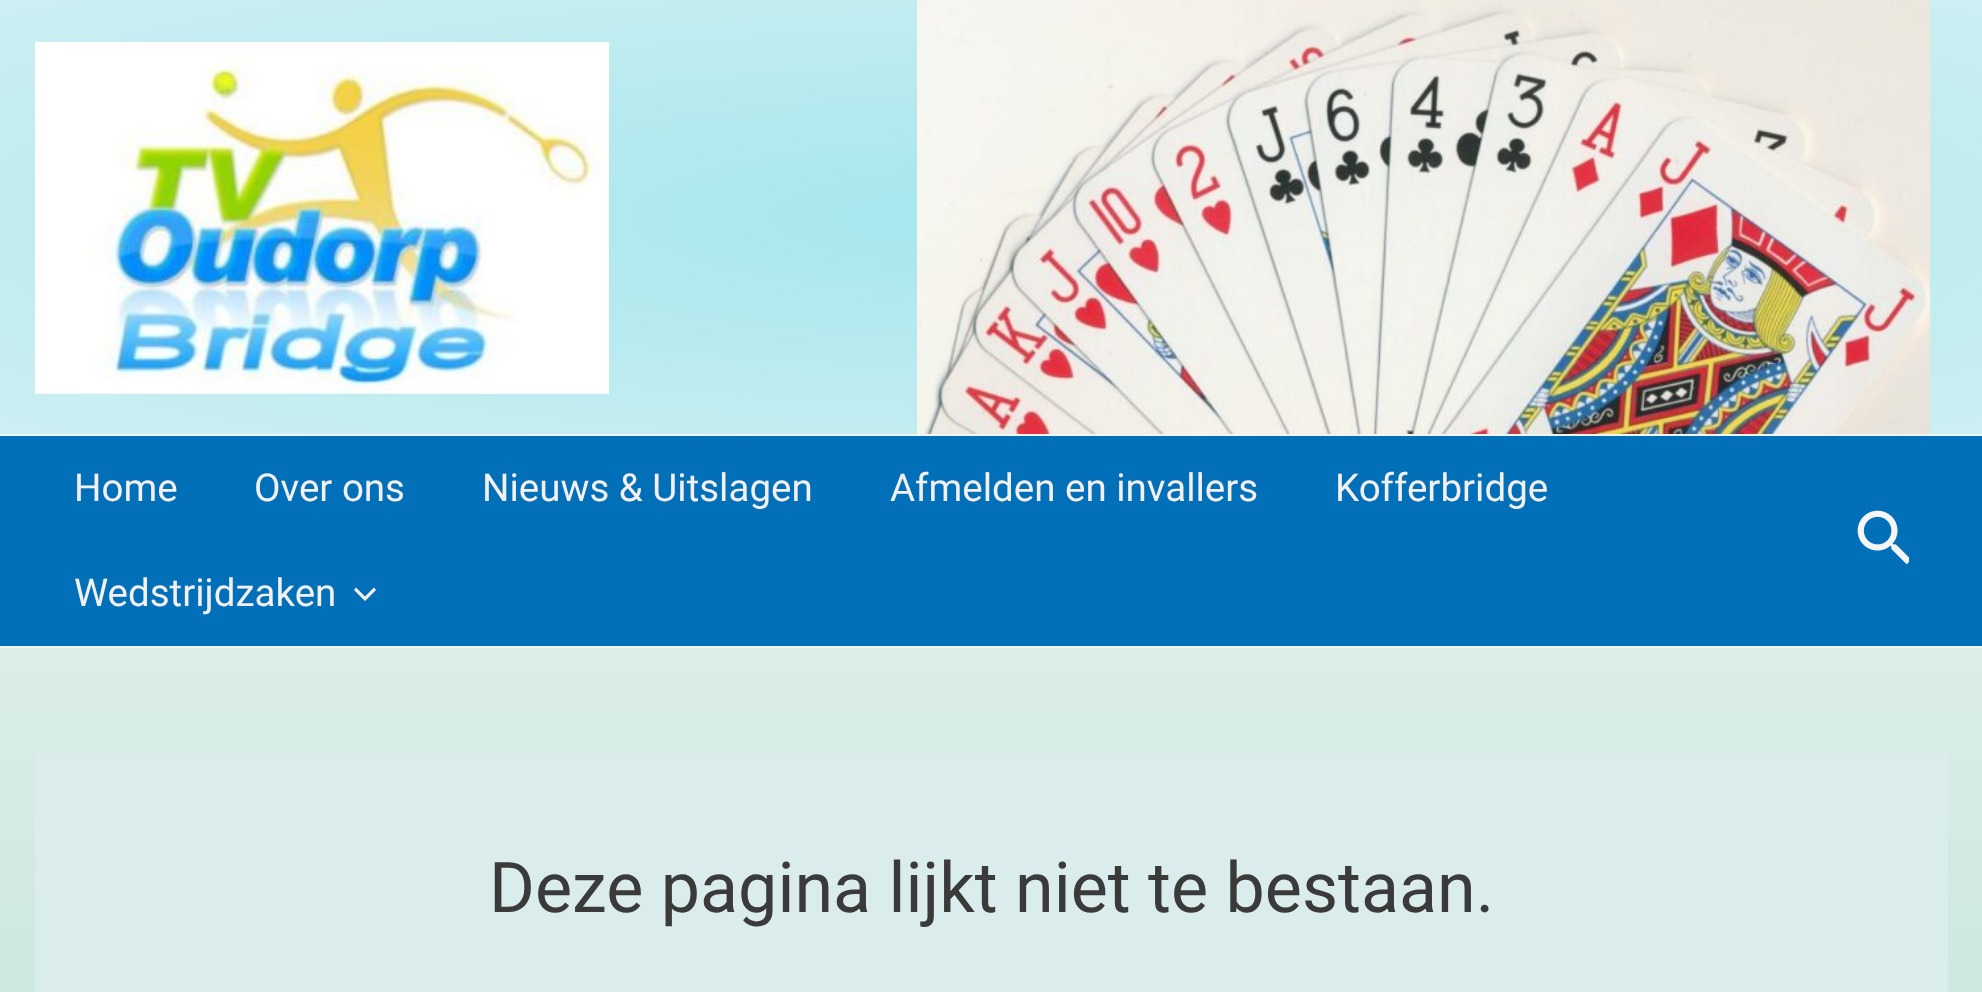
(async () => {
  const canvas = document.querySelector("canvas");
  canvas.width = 1982;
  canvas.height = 992;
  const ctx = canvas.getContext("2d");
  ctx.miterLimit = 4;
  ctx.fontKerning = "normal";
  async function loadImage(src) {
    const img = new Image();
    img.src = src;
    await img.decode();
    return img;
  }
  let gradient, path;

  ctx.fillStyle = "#ffffff";
  ctx.fillRect(0, 0, 1982, 992);
  gradient = ctx.createLinearGradient(991, 0, 991, 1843);
  gradient.addColorStop(0, "#f6f6f6");
  gradient.addColorStop(1, "#aadccd");
  ctx.fillStyle = gradient;
  ctx.fillRect(0, 648, 1982, 344);
  gradient = ctx.createRadialGradient(991, 990.99, 0, 991, 990.99, 1402);
  gradient.addColorStop(0, "#a7e6ed");
  gradient.addColorStop(1, "#cceff2");
  ctx.fillStyle = gradient;
  ctx.beginPath();
  ctx.rect(0, 0, 1982, 434);
  ctx.save();
  ctx.clip();
  ctx.scale(1, 307 / 1402);
  ctx.fillRect(0, 0, 1982, 4531);
  ctx.restore();
  ctx.fillStyle = "#f2f5f7";
  ctx.fillRect(0, 434, 1982, 2);
  ctx.drawImage(await loadImage("img/1.png"), 35, 42, 574, 352);
  ctx.drawImage(await loadImage("img/2.png"), 917, 0, 1014, 434);
  ctx.fillStyle = "#0170b9";
  ctx.fillRect(0, 436, 1982, 210);
  ctx.fillStyle = "#f2f5f7";
  ctx.fillRect(0, 646, 1982, 2);
  ctx.fillStyle = "#f5f0f0";
  path = new Path2D("M354 590L365 601L376 590L374 587.5L365 596.5L356 587.5Z");
  ctx.fill(path);
  ctx.drawImage(await loadImage("img/3.png"), 1857, 510, 52, 55);
  ctx.fillStyle = "#dbecec";
  ctx.fillRect(35, 753, 1913, 239);
  ctx.font = "38.5px Roboto";
  ctx.fillStyle = "#f5f0f0";
  for (const [text, x, y] of [
    ["Home", 74, 501],
    ["Over ons", 254, 501],
    ["Nieuws & Uitslagen", 482, 501],
    ["Afmelden en invallers", 890, 501],
    ["Kofferbridge", 1335, 501],
    ["Wedstrijdzaken", 74, 606],
  ]) {
    ctx.fillText(text, x, y);
  }
  ctx.font = "70px Roboto";
  ctx.fillStyle = "#3a3a3a";
  ctx.fillText("Deze pagina lijkt niet te bestaan.", 489, 912);
})();
